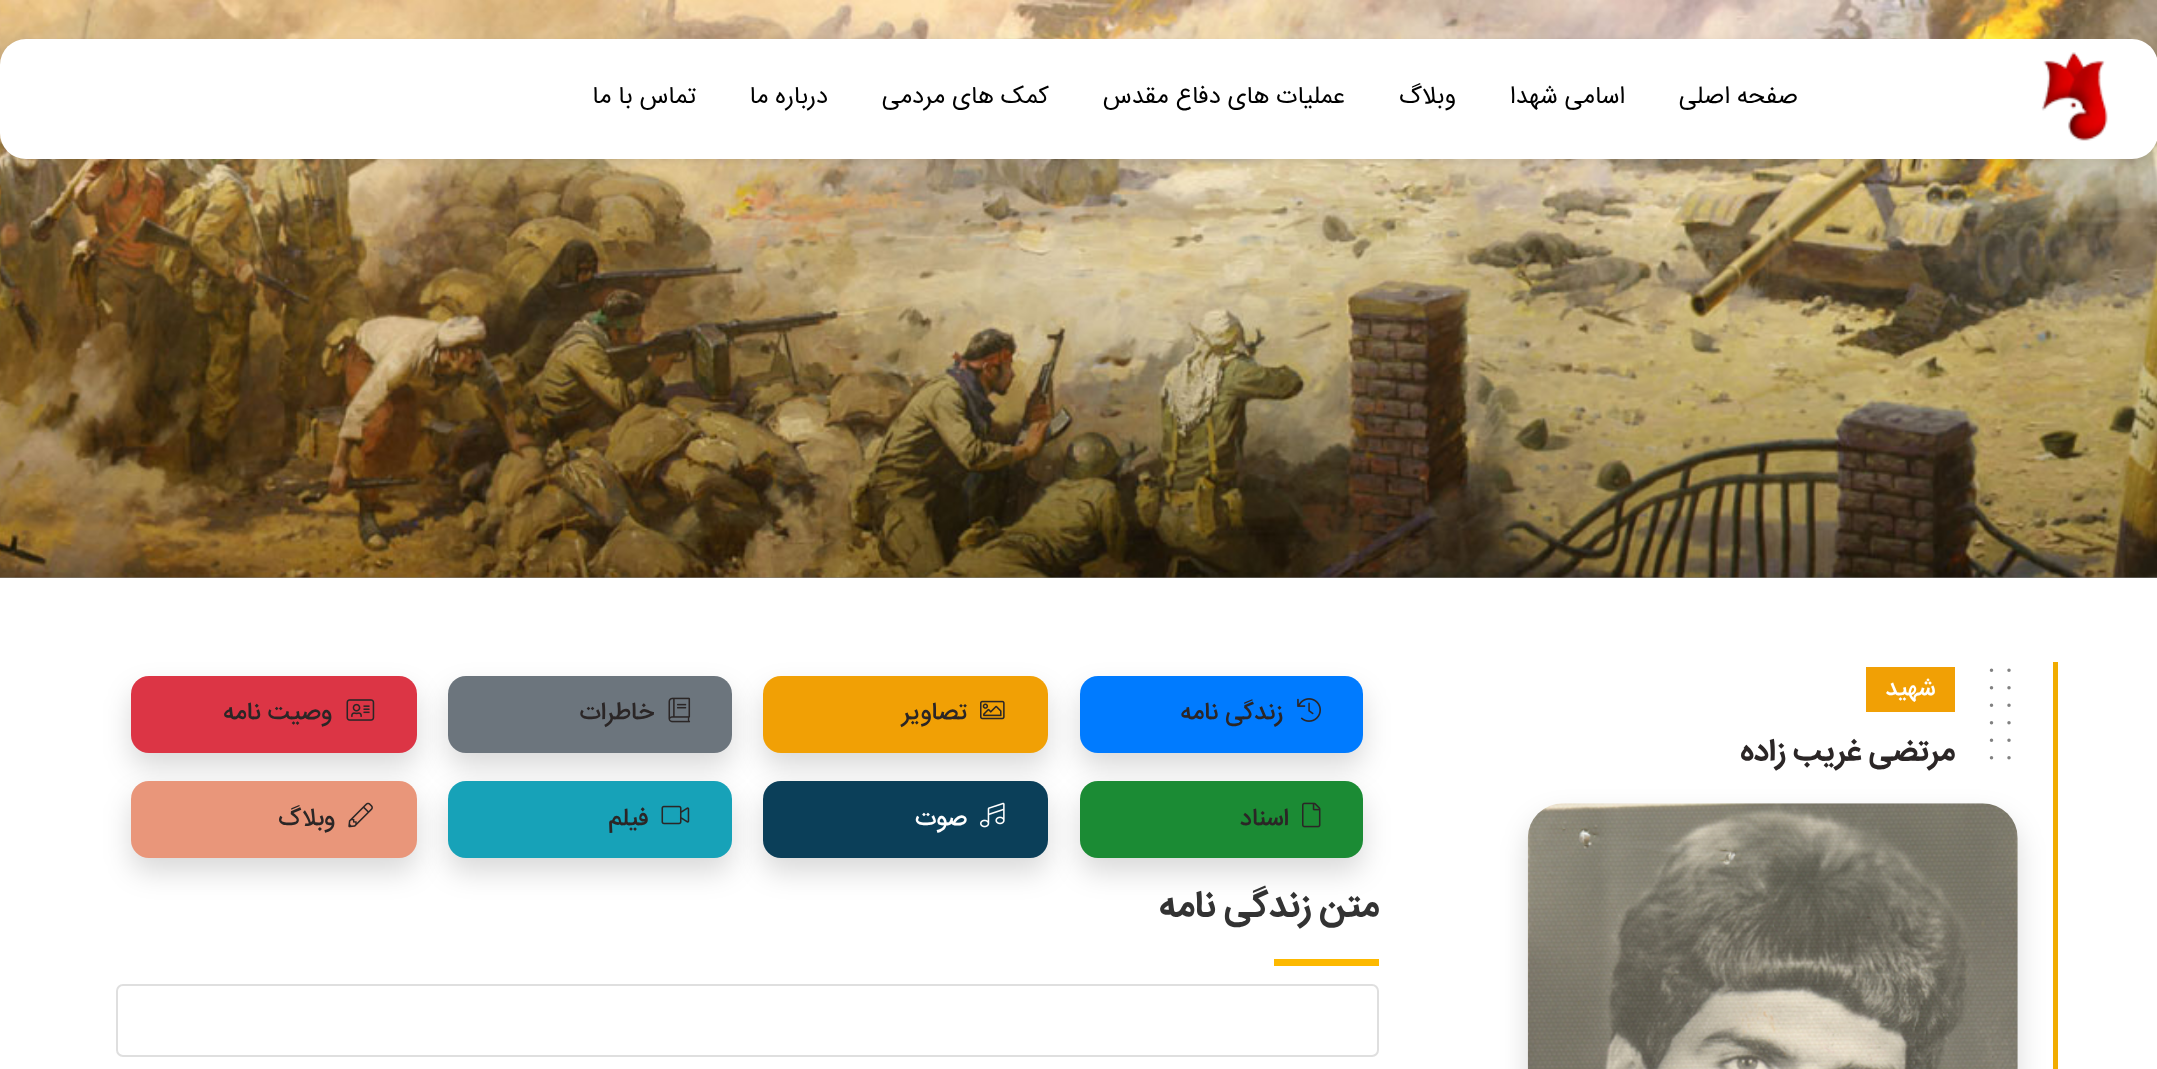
(async () => {
  const canvas = document.querySelector("canvas");
  canvas.width = 2157;
  canvas.height = 1069;
  const ctx = canvas.getContext("2d");
  ctx.miterLimit = 4;
  ctx.fontKerning = "normal";
  async function loadImage(src) {
    const img = new Image();
    img.src = src;
    await img.decode();
    return img;
  }
  let path;

  ctx.fillStyle = "#ffffff";
  ctx.fillRect(0, 0, 2157, 1069);
  ctx.fillStyle = "#808080";
  ctx.fillRect(0, 577, 2157, 1);
  ctx.drawImage(await loadImage("img/1.png"), 0, 0, 2157, 578);
  ctx.fillStyle = "rgba(0, 0, 0, 0.07)";
  ctx.filter = "blur(3.5px)";
  ctx.beginPath();
  ctx.roundRect(0, 42, 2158, 121, 26);
  ctx.fill();
  ctx.filter = "none";
  ctx.fillStyle = "#ffffff";
  ctx.beginPath();
  ctx.roundRect(0, 39, 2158, 120, 26);
  ctx.fill();
  ctx.drawImage(await loadImage("img/2.png"), 2041, 52, 67, 89);
  ctx.fillStyle = "#f1ac00";
  ctx.fillRect(2053, 662, 5, 407);
  path = new Path2D("M1991.5 670.2V758.1");
  ctx.strokeStyle = "#818181";
  ctx.lineWidth = 3.5;
  ctx.lineCap = "round";
  ctx.setLineDash([0, 17.5]);
  ctx.stroke(path);
  path = new Path2D("M2009 670.2V758.1");
  ctx.stroke(path);
  ctx.fillStyle = "#f1a005";
  ctx.fillRect(1866, 667, 89, 45);
  ctx.fillStyle = "rgba(0, 0, 0, 0.15)";
  ctx.filter = "blur(14px)";
  ctx.beginPath();
  ctx.roundRect(1528, 817, 490, 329, 35);
  ctx.fill();
  ctx.filter = "none";
  ctx.drawImage(await loadImage("img/3.png"), 1527, 803, 491, 266);
  ctx.filter = "blur(14px)";
  ctx.beginPath();
  ctx.roundRect(1080, 690, 283, 77, 18);
  ctx.fill();
  ctx.filter = "none";
  ctx.fillStyle = "#007bff";
  ctx.beginPath();
  ctx.roundRect(1080, 676, 283, 77, 18);
  ctx.fill();
  ctx.drawImage(await loadImage("img/4.png"), 1297, 698, 24, 24);
  ctx.fillStyle = "rgba(0, 0, 0, 0.15)";
  ctx.filter = "blur(14px)";
  ctx.beginPath();
  ctx.roundRect(763, 690, 285, 77, 18);
  ctx.fill();
  ctx.filter = "none";
  ctx.fillStyle = "#f1a005";
  ctx.beginPath();
  ctx.roundRect(763, 676, 285, 77, 18);
  ctx.fill();
  ctx.drawImage(await loadImage("img/5.png"), 980, 700, 25, 20);
  ctx.fillStyle = "rgba(0, 0, 0, 0.15)";
  ctx.filter = "blur(14px)";
  ctx.beginPath();
  ctx.roundRect(448, 690, 284, 77, 18);
  ctx.fill();
  ctx.filter = "none";
  ctx.fillStyle = "#6c757d";
  ctx.beginPath();
  ctx.roundRect(448, 676, 284, 77, 18);
  ctx.fill();
  ctx.drawImage(await loadImage("img/6.png"), 668, 697, 23, 26);
  ctx.fillStyle = "rgba(0, 0, 0, 0.15)";
  ctx.filter = "blur(14px)";
  ctx.beginPath();
  ctx.roundRect(131, 690, 286, 77, 18);
  ctx.fill();
  ctx.filter = "none";
  ctx.fillStyle = "#dc3545";
  ctx.beginPath();
  ctx.roundRect(131, 676, 286, 77, 18);
  ctx.fill();
  ctx.drawImage(await loadImage("img/7.png"), 346, 699, 29, 22);
  ctx.fillStyle = "rgba(0, 0, 0, 0.15)";
  ctx.filter = "blur(14px)";
  ctx.beginPath();
  ctx.roundRect(1080, 795, 283, 77, 18);
  ctx.fill();
  ctx.filter = "none";
  ctx.fillStyle = "#1b8b34";
  ctx.beginPath();
  ctx.roundRect(1080, 781, 283, 77, 18);
  ctx.fill();
  ctx.drawImage(await loadImage("img/8.png"), 1302, 802, 19, 26);
  ctx.fillStyle = "rgba(0, 0, 0, 0.15)";
  ctx.filter = "blur(14px)";
  ctx.beginPath();
  ctx.roundRect(763, 795, 285, 77, 18);
  ctx.fill();
  ctx.filter = "none";
  ctx.fillStyle = "#0b3f59";
  ctx.beginPath();
  ctx.roundRect(763, 781, 285, 77, 18);
  ctx.fill();
  ctx.drawImage(await loadImage("img/9.png"), 980, 802, 25, 26);
  ctx.fillStyle = "rgba(0, 0, 0, 0.15)";
  ctx.filter = "blur(14px)";
  ctx.beginPath();
  ctx.roundRect(448, 795, 284, 77, 18);
  ctx.fill();
  ctx.filter = "none";
  ctx.fillStyle = "#17a2b8";
  ctx.beginPath();
  ctx.roundRect(448, 781, 284, 77, 18);
  ctx.fill();
  ctx.drawImage(await loadImage("img/10.png"), 661, 805, 29, 20);
  ctx.fillStyle = "rgba(0, 0, 0, 0.15)";
  ctx.filter = "blur(14px)";
  ctx.beginPath();
  ctx.roundRect(131, 795, 286, 77, 18);
  ctx.fill();
  ctx.filter = "none";
  ctx.fillStyle = "#e9967a";
  ctx.beginPath();
  ctx.roundRect(131, 781, 286, 77, 18);
  ctx.fill();
  ctx.drawImage(await loadImage("img/11.png"), 348, 802, 25, 26);
  ctx.fillStyle = "#fdb900";
  ctx.fillRect(1274, 959, 105, 7);
  ctx.beginPath();
  ctx.roundRect(117, 985, 1261, 71, 6);
  ctx.strokeStyle = "#dfdfdf";
  ctx.lineWidth = 2;
  ctx.setLineDash([]);
  ctx.stroke();
  ctx.direction = "rtl";
  ctx.font = "24.5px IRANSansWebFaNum";
  ctx.fillStyle = "#000000";
  for (const [text, x, y] of [
    ["صفحه اصلی", 1798, 103],
    ["اسامی شهدا", 1625, 103],
    ["وبلاگ", 1456, 103],
    ["عملیات های دفاع مقدس", 1345, 103],
    ["کمک های مردمی", 1049, 103],
    ["درباره ما", 828, 103],
    ["تماس با ما", 696, 103],
  ]) {
    ctx.fillText(text, x, y);
  }
  ctx.font = "500 24px IRANSansWebFaNum";
  ctx.fillStyle = "#ffffff";
  ctx.fillText("شهید", 1935, 695);
  ctx.font = "bold 30.75px IRANSansWebFaNum";
  ctx.fillStyle = "#2b2626";
  ctx.fillText("مرتضی غریب زاده", 1955, 760);
  ctx.font = "500 24.5px IRANSansWebFaNum";
  for (const [text, x, y] of [
    ["زندگی نامه", 1283, 719],
    ["تصاویر", 967, 719],
    ["خاطرات", 654, 719],
    ["وصیت نامه", 332, 719],
    ["اسناد", 1289, 825],
  ]) {
    ctx.fillText(text, x, y);
  }
  ctx.fillStyle = "#ffffff";
  ctx.fillText("صوت", 967, 825);
  ctx.fillStyle = "#2b2626";
  ctx.fillText("فیلم", 648, 825);
  ctx.fillText("وبلاگ", 335, 825);
  ctx.font = "bold 36.5px IRANSansWebFaNum";
  ctx.fillStyle = "#333333";
  ctx.fillText("متن زندگی نامه", 1379, 916);
})();
